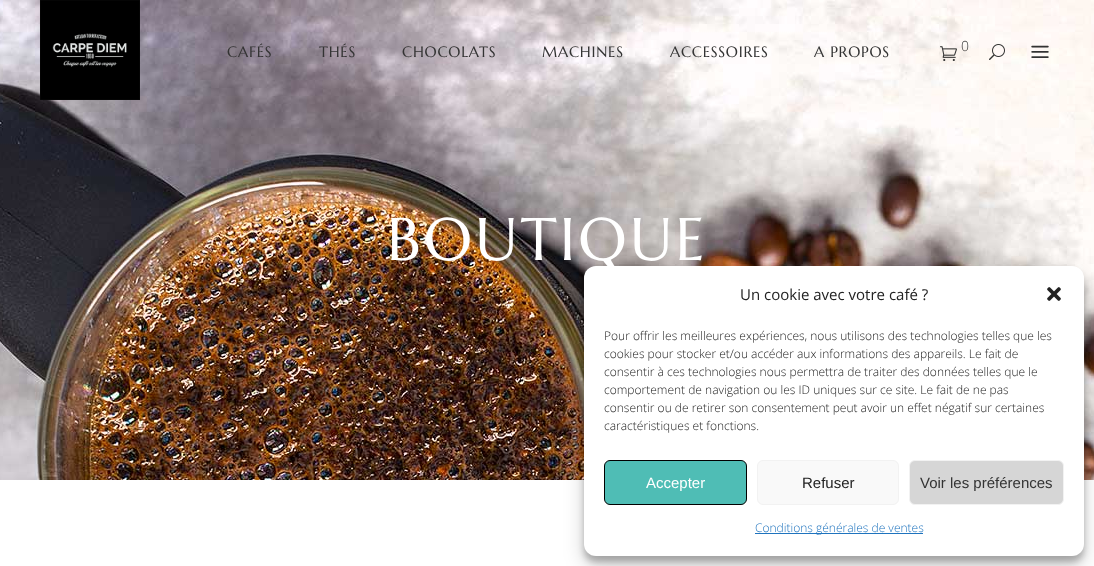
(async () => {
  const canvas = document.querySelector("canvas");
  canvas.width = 1094;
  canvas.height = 566;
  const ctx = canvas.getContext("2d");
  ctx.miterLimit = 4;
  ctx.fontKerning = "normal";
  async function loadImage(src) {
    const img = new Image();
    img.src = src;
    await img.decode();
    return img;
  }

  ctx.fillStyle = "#ffffff";
  ctx.fillRect(0, 0, 1094, 566);
  ctx.drawImage(await loadImage("img/5.png"), 0, 0, 1094, 480);
  ctx.drawImage(await loadImage("img/1.png"), 40, 0, 100, 100);
  ctx.drawImage(await loadImage("img/2.png"), 940, 46, 17, 15);
  ctx.drawImage(await loadImage("img/3.png"), 989, 44, 16, 16);
  ctx.drawImage(await loadImage("img/4.png"), 1031, 45, 18, 13);
  ctx.fillStyle = "rgba(0, 0, 0, 0.23)";
  ctx.filter = "blur(3px)";
  ctx.beginPath();
  ctx.roundRect(584, 272, 500, 290, 12);
  ctx.fill();
  ctx.filter = "none";
  ctx.fillStyle = "rgba(0, 0, 0, 0.19)";
  ctx.filter = "blur(10px)";
  ctx.beginPath();
  ctx.roundRect(584, 276, 500, 290, 12);
  ctx.fill();
  ctx.filter = "none";
  ctx.fillStyle = "#ffffff";
  ctx.beginPath();
  ctx.roundRect(584, 266, 500, 290, 12);
  ctx.fill();
  ctx.drawImage(await loadImage("img/6.png"), 1047, 287, 14, 14);
  ctx.fillStyle = "#4fbdb5";
  ctx.beginPath();
  ctx.roundRect(604.5, 460.5, 142, 44, 5.5);
  ctx.fill();
  ctx.strokeStyle = "#000000";
  ctx.stroke();
  ctx.fillStyle = "#f9f9f9";
  ctx.beginPath();
  ctx.roundRect(757.5, 460.5, 141, 44, 5.5);
  ctx.fill();
  ctx.strokeStyle = "#f2f2f2";
  ctx.stroke();
  ctx.fillStyle = "#d6d6d6";
  ctx.beginPath();
  ctx.roundRect(909.5, 460.5, 154, 44, 5.5);
  ctx.fill();
  ctx.stroke();
  ctx.fillStyle = "#1e73be";
  ctx.fillRect(755, 533, 168, 1);
  ctx.letterSpacing = "0.75px";
  ctx.font = "15px Marcellus";
  ctx.fillStyle = "#333333";
  for (const [text, x, y] of [
    ["CAFÉS", 227, 57],
    ["THÉS", 319, 57],
    ["CHOCOLATS", 402, 57],
    ["MACHINES", 542, 57],
    ["ACCESSOIRES", 670, 57],
    ["A PROPOS", 814, 57],
  ]) {
    ctx.fillText(text, x, y);
  }
  ctx.letterSpacing = "0px";
  ctx.font = "300 14px Open Sans";
  ctx.fillText("0", 961, 51);
  ctx.letterSpacing = "3px";
  ctx.font = "60px Marcellus";
  ctx.fillStyle = "#ffffff";
  ctx.fillText("BOUTIQUE", 387, 260);
  ctx.letterSpacing = "0px";
  ctx.font = "15px Open Sans";
  ctx.fillStyle = "#222222";
  ctx.fillText("Un cookie avec votre café ?", 740, 300);
  ctx.font = "300 12px Open Sans";
  for (const [text, x, y] of [
    ["Pour offrir les meilleures expériences, nous utilisons des technologies telles que les", 604, 340],
    ["cookies pour stocker et/ou accéder aux informations des appareils. Le fait de", 604, 358],
    ["consentir à ces technologies nous permettra de traiter des données telles que le", 604, 376],
    ["comportement de navigation ou les ID uniques sur ce site. Le fait de ne pas", 604, 394],
    ["consentir ou de retirer son consentement peut avoir un effet négatif sur certaines", 604, 412],
    ["caractéristiques et fonctions.", 604, 430],
  ]) {
    ctx.fillText(text, x, y);
  }
  ctx.font = "15px Liberation Sans";
  ctx.fillStyle = "#ffffff";
  ctx.fillText("Accepter", 646, 488);
  ctx.fillStyle = "#222222";
  ctx.fillText("Refuser", 802, 488);
  ctx.fillStyle = "#333333";
  ctx.fillText("Voir les préférences", 920, 488);
  ctx.font = "300 12px Open Sans";
  ctx.fillStyle = "#1e73be";
  ctx.fillText("Conditions générales de ventes", 755, 532);
})();
